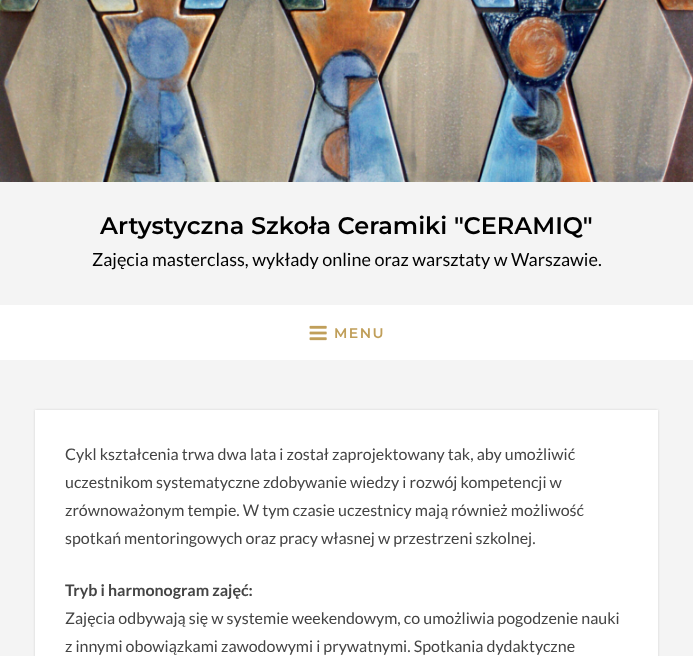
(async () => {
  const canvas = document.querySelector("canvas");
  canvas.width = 693;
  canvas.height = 656;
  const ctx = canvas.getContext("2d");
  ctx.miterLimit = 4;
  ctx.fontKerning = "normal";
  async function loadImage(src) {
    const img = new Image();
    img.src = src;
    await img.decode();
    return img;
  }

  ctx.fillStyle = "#f4f4f4";
  ctx.fillRect(0, 0, 693, 656);
  ctx.drawImage(await loadImage("img/1.png"), 0, 0, 693, 182);
  ctx.fillStyle = "#ffffff";
  ctx.fillRect(0, 305, 693, 55);
  ctx.drawImage(await loadImage("img/2.png"), 309, 325, 18, 16);
  ctx.fillStyle = "rgba(51, 51, 51, 0.08)";
  ctx.filter = "blur(1px)";
  ctx.beginPath();
  ctx.rect(35, 410, 623, 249);
  ctx.fill();
  ctx.filter = "none";
  ctx.filter = "blur(1px)";
  ctx.beginPath();
  ctx.rect(35, 410, 623, 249);
  ctx.fill();
  ctx.filter = "none";
  ctx.fillStyle = "#ffffff";
  ctx.fillRect(35, 410, 623, 246);
  ctx.font = "600 24px Montserrat";
  ctx.fillStyle = "#000000";
  ctx.fillText("Artystyczna Szkoła Ceramiki \"CERAMIQ\"", 100, 234);
  ctx.font = "18px Lato";
  ctx.fillText("Zajęcia masterclass, wykłady online oraz warsztaty w Warszawie.", 92, 266);
  ctx.letterSpacing = "1.5px";
  ctx.font = "600 14px Montserrat";
  ctx.fillStyle = "#c09f5a";
  ctx.fillText("MENU", 334, 338);
  ctx.letterSpacing = "0px";
  ctx.font = "16px Lato";
  ctx.fillStyle = "#444444";
  for (const [text, x, y] of [
    ["Cykl kształcenia trwa dwa lata i został zaprojektowany tak, aby umożliwić", 65, 460],
    ["uczestnikom systematyczne zdobywanie wiedzy i rozwój kompetencji w", 65, 488],
    ["zrównoważonym tempie. W tym czasie uczestnicy mają również możliwość", 65, 516],
    ["spotkań mentoringowych oraz pracy własnej w przestrzeni szkolnej.", 65, 544],
  ]) {
    ctx.fillText(text, x, y);
  }
  ctx.font = "bold 16px Lato";
  ctx.fillText("Tryb i harmonogram zajęć:", 65, 596);
  ctx.font = "16px Lato";
  ctx.fillText("Zajęcia odbywają się w systemie weekendowym, co umożliwia pogodzenie nauki", 65, 624);
  ctx.fillText("z innymi obowiązkami zawodowymi i prywatnymi. Spotkania dydaktyczne", 65, 652);
})();
